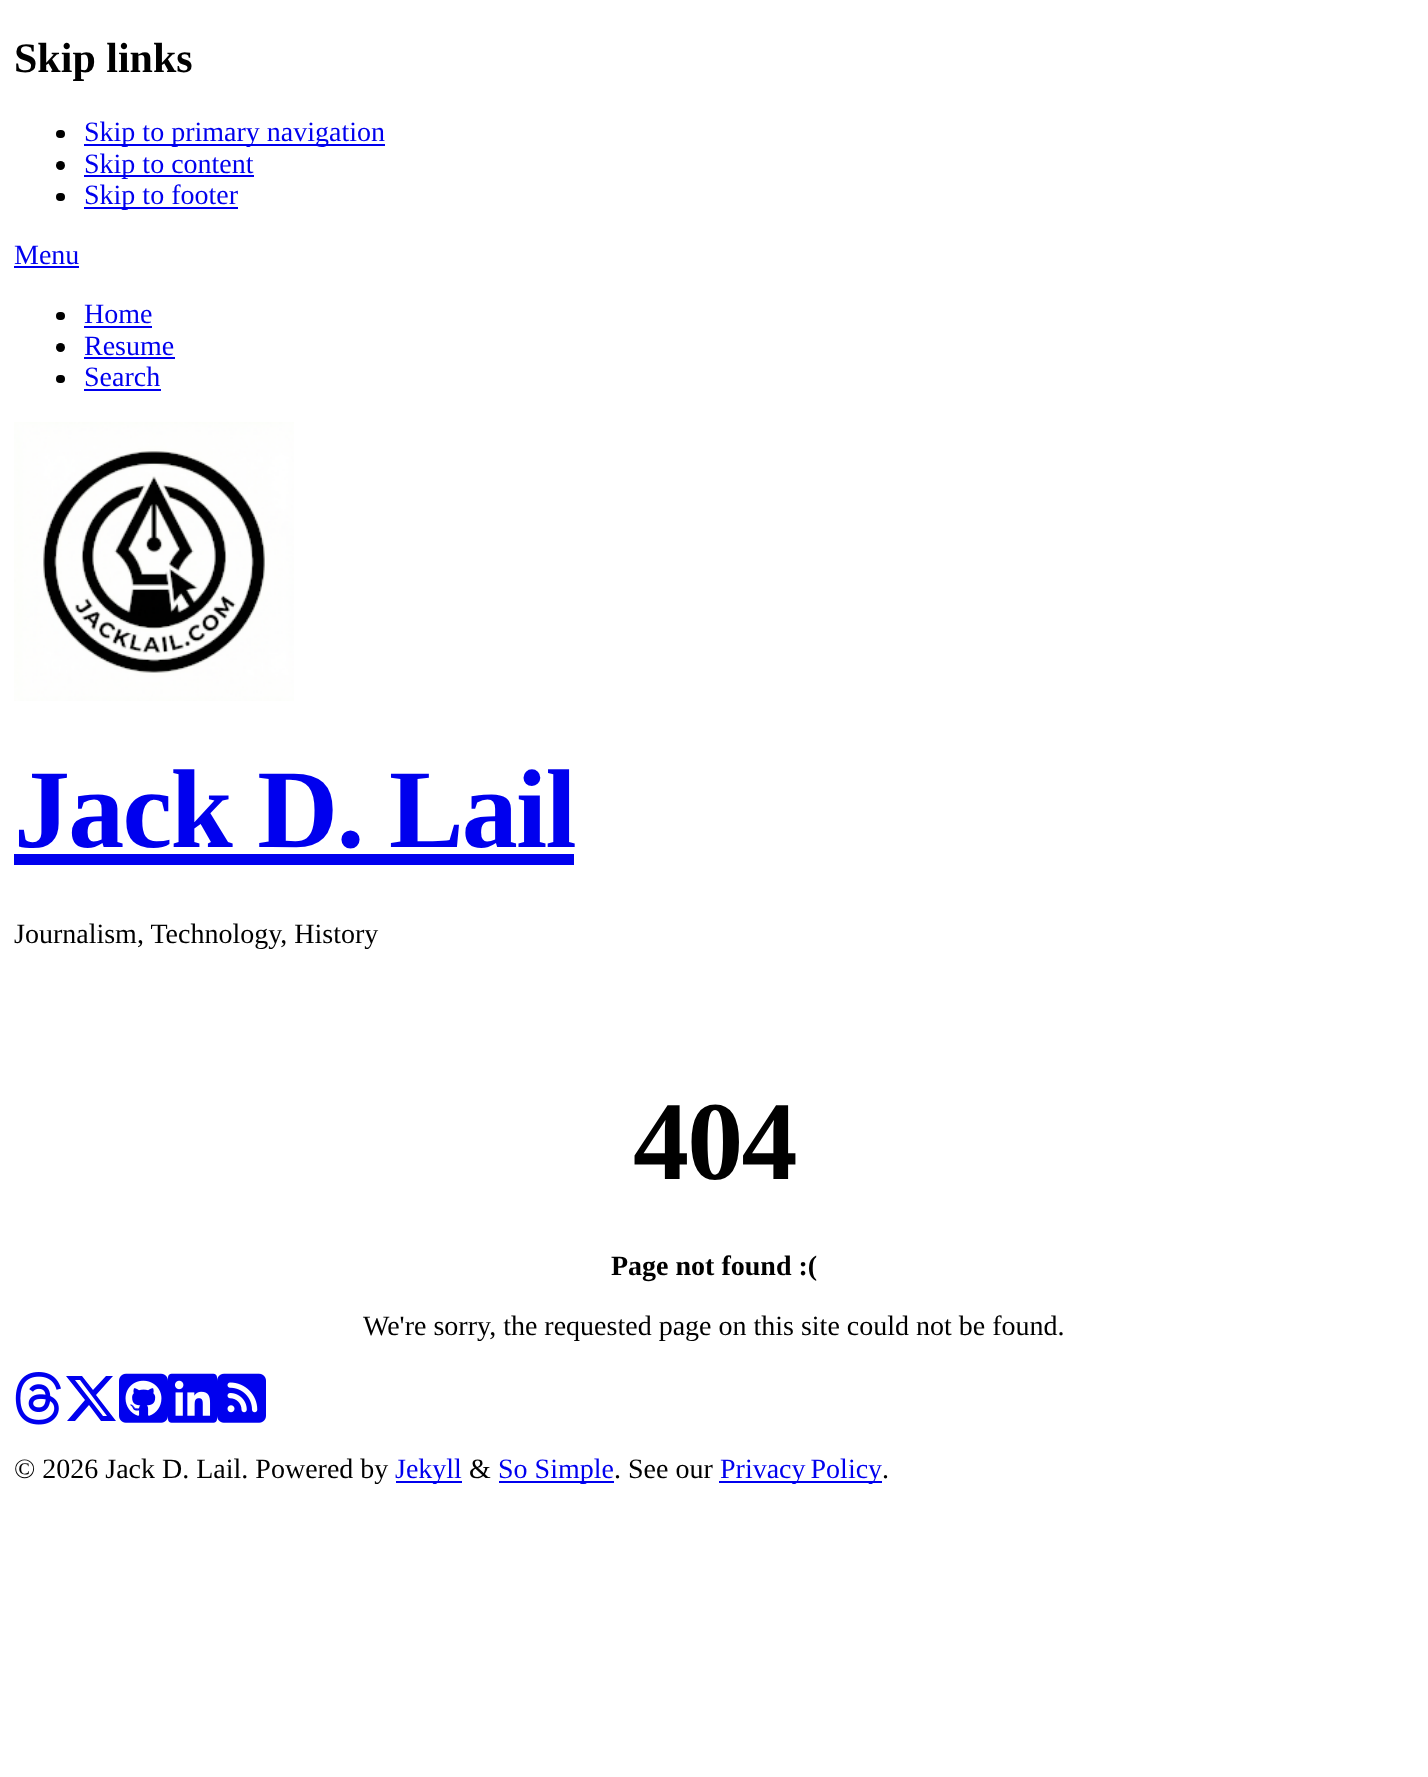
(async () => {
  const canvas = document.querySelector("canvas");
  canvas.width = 1428;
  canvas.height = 1777;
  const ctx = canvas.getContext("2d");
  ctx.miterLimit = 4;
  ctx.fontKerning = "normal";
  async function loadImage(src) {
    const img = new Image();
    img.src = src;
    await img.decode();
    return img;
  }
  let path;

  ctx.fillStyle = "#ffffff";
  ctx.fillRect(0, 0, 1428, 1777);
  ctx.fillStyle = "#000000";
  ctx.beginPath();
  ctx.roundRect(56, 130, 9, 8, 4);
  ctx.fill();
  ctx.fillStyle = "#0000ee";
  ctx.fillRect(84, 144, 301, 2);
  ctx.fillStyle = "#000000";
  ctx.beginPath();
  ctx.arc(60.5, 165.5, 4.5, 0, Math.PI * 2);
  ctx.fill();
  ctx.fillStyle = "#0000ee";
  ctx.fillRect(84, 175, 170, 2);
  ctx.fillStyle = "#000000";
  ctx.beginPath();
  ctx.roundRect(56, 193, 9, 8, 4);
  ctx.fill();
  ctx.fillStyle = "#0000ee";
  ctx.fillRect(84, 207, 154, 2);
  ctx.fillRect(14, 266, 65, 2);
  ctx.fillStyle = "#000000";
  ctx.beginPath();
  ctx.roundRect(56, 312, 9, 8, 4);
  ctx.fill();
  ctx.fillStyle = "#0000ee";
  ctx.fillRect(84, 326, 68, 2);
  ctx.fillStyle = "#000000";
  ctx.beginPath();
  ctx.arc(60.5, 347.5, 4.5, 0, Math.PI * 2);
  ctx.fill();
  ctx.fillStyle = "#0000ee";
  ctx.fillRect(84, 357, 91, 2);
  ctx.fillStyle = "#000000";
  ctx.beginPath();
  ctx.roundRect(56, 375, 9, 8, 4);
  ctx.fill();
  ctx.fillStyle = "#0000ee";
  ctx.fillRect(84, 389, 77, 2);
  ctx.drawImage(await loadImage("img/1.png"), 14, 422, 280, 279);
  ctx.fillRect(14, 854, 560, 11);
  ctx.drawImage(await loadImage("img/2.png"), 15, 1372, 46, 53);
  path = new Path2D("M106 1376H113L96 1395L116 1421H101L89 1405L75 1421H67L85 1400L66 1376H82L93 1390ZM103 1416H107L80 1380H75Z");
  ctx.fill(path);
  ctx.drawImage(await loadImage("img/3.png"), 119, 1373, 49, 50);
  ctx.drawImage(await loadImage("img/4.png"), 168, 1373, 49, 50);
  ctx.drawImage(await loadImage("img/5.png"), 217, 1373, 49, 50);
  for (const [x, y, w, h, color] of [
    [396, 1481, 66, 2, "#0000ee"],
    [499, 1481, 115, 2, "#0000ee"],
    [719, 1481, 163, 2, "#0000ee"],
  ]) {
    ctx.fillStyle = color;
    ctx.fillRect(x, y, w, h);
  }
  ctx.font = "bold 42px Liberation Serif";
  ctx.fillStyle = "#000000";
  ctx.fillText("Skip links", 14, 72);
  ctx.font = "28px Liberation Serif";
  ctx.fillStyle = "#0000ee";
  for (const [text, x, y] of [
    ["Skip to primary navigation", 84, 141],
    ["Skip to content", 84, 173],
    ["Skip to footer", 84, 204],
    ["Menu", 14, 264],
    ["Home", 84, 323],
    ["Resume", 84, 355],
    ["Search", 84, 386],
  ]) {
    ctx.fillText(text, x, y);
  }
  ctx.letterSpacing = "-1.75px";
  ctx.font = "bold 112px Liberation Serif";
  ctx.fillText("Jack D. Lail", 14, 847);
  ctx.letterSpacing = "0px";
  ctx.font = "28px Liberation Serif";
  ctx.fillStyle = "#000000";
  ctx.fillText("Journalism, Technology, History", 14, 943);
  ctx.letterSpacing = "-1.75px";
  ctx.font = "bold 112px Liberation Serif";
  ctx.fillText("404", 633, 1179);
  ctx.letterSpacing = "0px";
  ctx.font = "bold 28px Liberation Serif";
  ctx.fillText("Page not found :(", 611, 1275);
  ctx.font = "28px Liberation Serif";
  ctx.fillText("We're sorry, the requested page on this site could not be found.", 363, 1335);
  ctx.fillText("© 2026 Jack D. Lail. Powered by", 14, 1478);
  ctx.fillStyle = "#0000ee";
  ctx.fillText("Jekyll", 395, 1478);
  ctx.fillStyle = "#000000";
  ctx.fillText("&", 469, 1478);
  ctx.fillStyle = "#0000ee";
  ctx.fillText("So Simple", 498, 1478);
  ctx.fillStyle = "#000000";
  ctx.fillText(". See our", 614, 1478);
  ctx.wordSpacing = "-2px";
  ctx.fillStyle = "#0000ee";
  ctx.fillText("Privacy Policy", 720, 1478);
  ctx.wordSpacing = "0px";
  ctx.fillStyle = "#000000";
  ctx.fillText(".", 882, 1478);
})();
